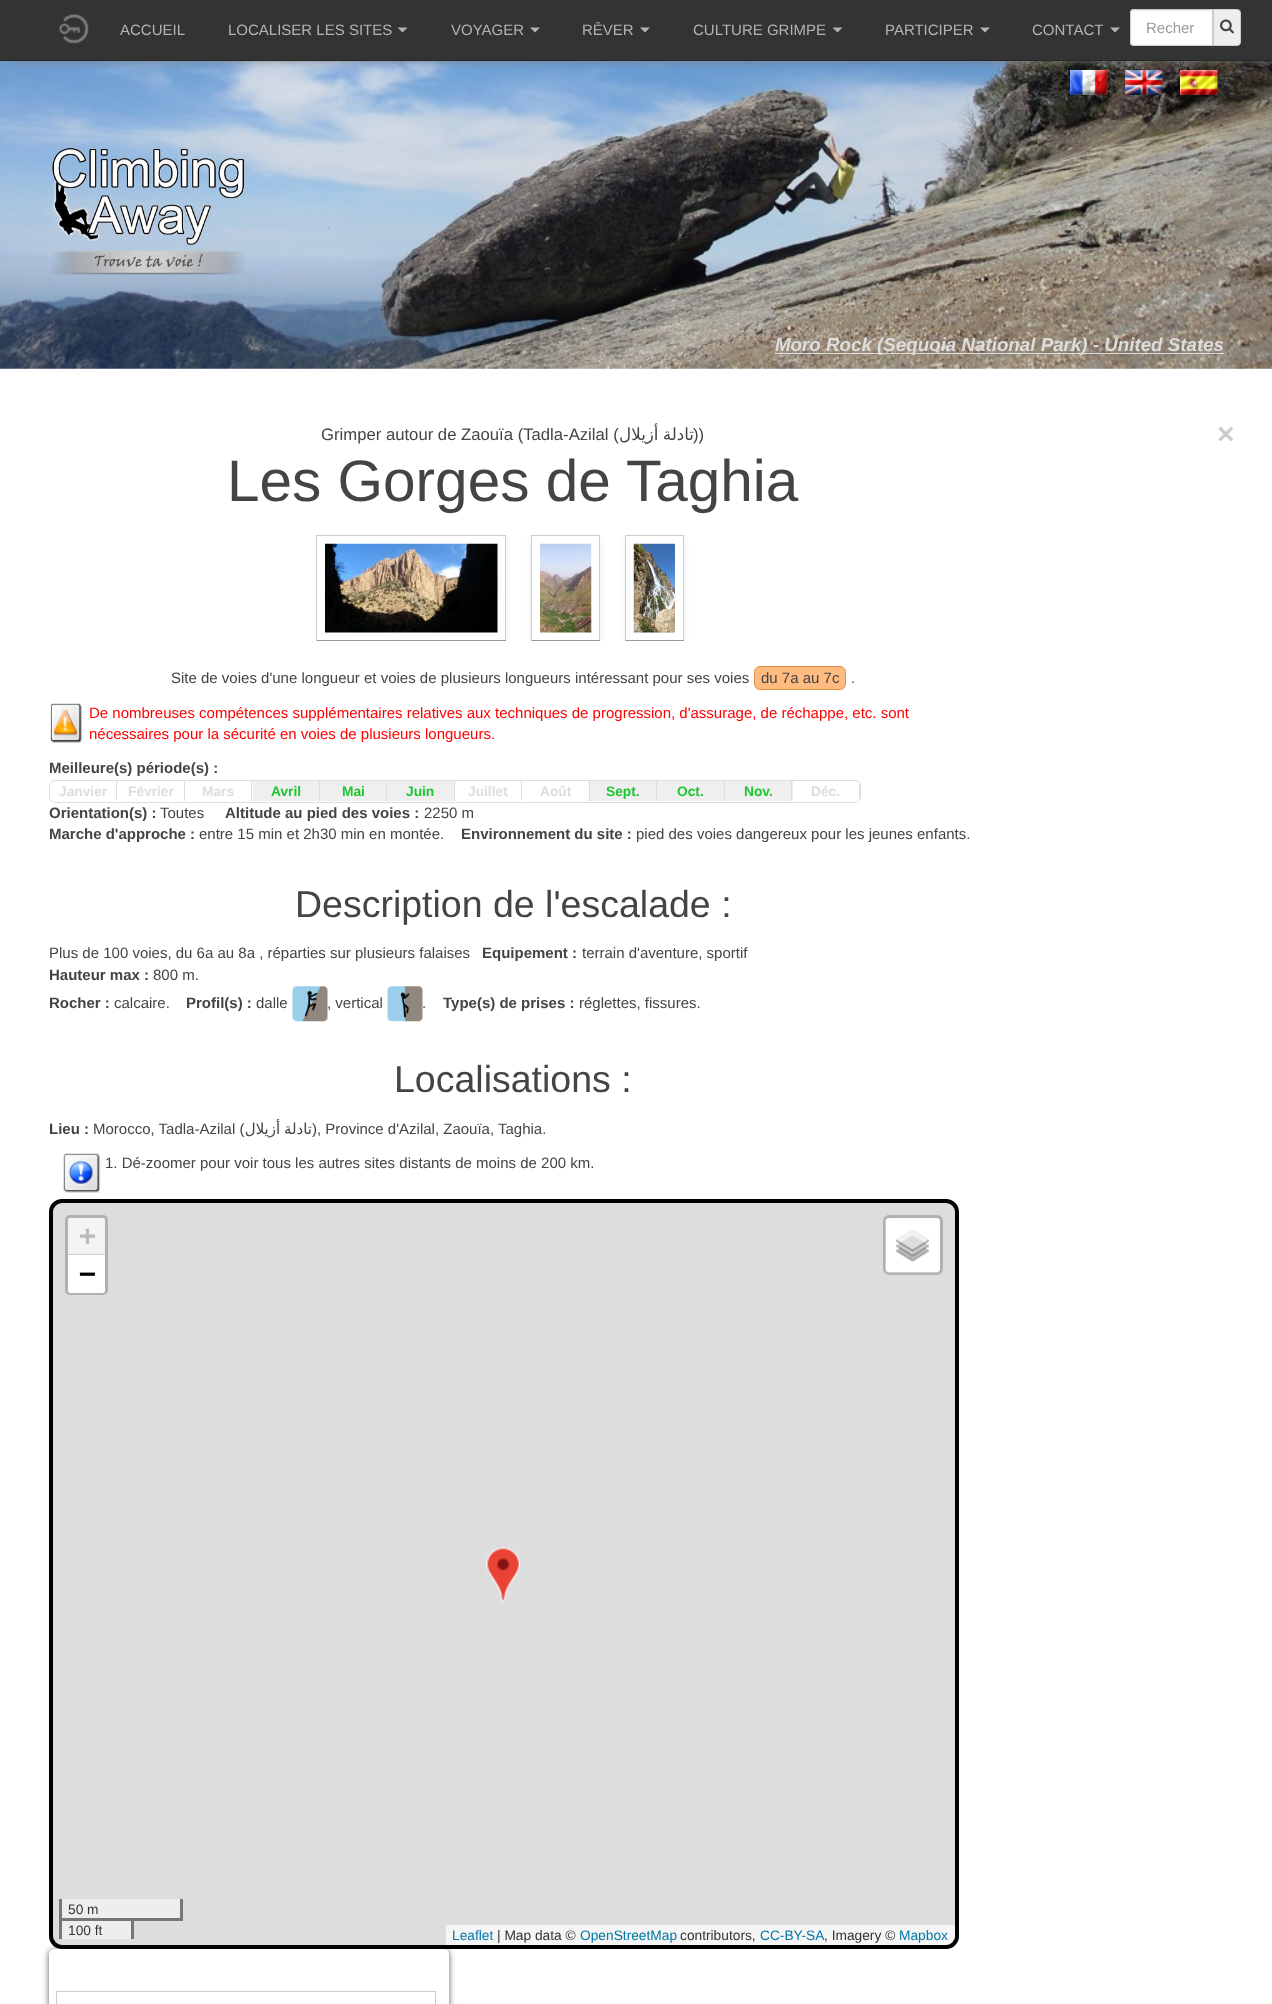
(async () => {
  const canvas = document.querySelector("canvas");
  canvas.width = 1272;
  canvas.height = 2004;
  const ctx = canvas.getContext("2d");
  ctx.miterLimit = 4;
  ctx.fontKerning = "normal";
  async function loadImage(src) {
    const img = new Image();
    img.src = src;
    await img.decode();
    return img;
  }
  let path;

  ctx.fillStyle = "#ffffff";
  ctx.fillRect(0, 0, 1272, 2004);
  ctx.drawImage(await loadImage("img/3.png"), 0, 61, 1272, 308);
  ctx.drawImage(await loadImage("img/4.png"), 1070, 70, 38, 25);
  ctx.drawImage(await loadImage("img/5.png"), 1125, 70, 38, 25);
  ctx.drawImage(await loadImage("img/6.png"), 1180, 70, 38, 25);
  ctx.fillStyle = "#808080";
  ctx.filter = "blur(5px)";
  ctx.beginPath();
  ctx.rect(9, 16, 1255, 44);
  ctx.fill();
  ctx.filter = "none";
  ctx.fillStyle = "#333333";
  ctx.fillRect(0, 0, 1272, 60);
  ctx.fillStyle = "#262626";
  ctx.fillRect(0, 60, 1272, 1);
  ctx.fillStyle = "#b3b3b3";
  path = new Path2D("M397.5 27.5H407.5L402.5 32.5Z");
  ctx.fill(path);
  path = new Path2D("M530 27.5H540L535 32.5Z");
  ctx.fill(path);
  path = new Path2D("M640 27.5H650L645 32.5Z");
  ctx.fill(path);
  path = new Path2D("M832.5 27.5H842.5L837.5 32.5Z");
  ctx.fill(path);
  path = new Path2D("M980 27.5H990L985 32.5Z");
  ctx.fill(path);
  path = new Path2D("M1110 27.5H1120L1115 32.5Z");
  ctx.fill(path);
  ctx.drawImage(await loadImage("img/1.png"), 59, 14, 30, 30);
  ctx.fillStyle = "#ffffff";
  ctx.beginPath();
  ctx.roundRect(1130, 9, 83, 37, [4, 0, 0, 4]);
  ctx.fill();
  ctx.fillStyle = "#ececec";
  path = new Path2D("M1134 11H1211V10H1134C1132 10 1131 11 1131 12V14C1131 12 1132 11 1134 11Z");
  ctx.fill(path);
  ctx.beginPath();
  ctx.roundRect(1130.5, 9.5, 82, 36, [3.5, 0, 0, 3.5]);
  ctx.strokeStyle = "#cccccc";
  ctx.stroke();
  ctx.fillStyle = "#eeeeee";
  ctx.beginPath();
  ctx.roundRect(1213.5, 9.5, 27, 36, [0, 3.5, 3.5, 0]);
  ctx.fill();
  ctx.stroke();
  ctx.drawImage(await loadImage("img/2.png"), 1220, 19, 14, 15);
  ctx.drawImage(await loadImage("img/7.png"), 51, 147, 194, 128);
  ctx.fillStyle = "#dddddd";
  ctx.fillRect(775, 353, 449, 1);
  ctx.fillStyle = "rgba(0, 0, 0, 0.65)";
  ctx.filter = "blur(3px)";
  ctx.beginPath();
  ctx.roundRect(49, 1950, 400, 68, 5);
  ctx.fill();
  ctx.filter = "none";
  ctx.fillStyle = "#ffffff";
  ctx.beginPath();
  ctx.roundRect(49, 1949, 400, 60, 5);
  ctx.fill();
  ctx.strokeRect(56.5, 1991.5, 379, 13);
  ctx.fillStyle = "#dddddd";
  ctx.beginPath();
  ctx.roundRect(49, 1199, 910, 750, 13);
  ctx.fill();
  ctx.fillStyle = "#eeeeee";
  ctx.fillRect(62, 1921, 69, 18);
  ctx.beginPath();
  ctx.roundRect(51, 1201, 906, 746, 11);
  ctx.strokeStyle = "#000000";
  ctx.lineWidth = 4;
  ctx.stroke();
  ctx.beginPath();
  ctx.roundRect(66.5, 1216.5, 40, 77, 3.5);
  ctx.strokeStyle = "#b1b1b1";
  ctx.lineWidth = 3;
  ctx.stroke();
  ctx.fillStyle = "#f4f4f4";
  ctx.beginPath();
  ctx.roundRect(68, 1218, 37, 37, [2.5, 2.5, 0, 0]);
  ctx.fill();
  ctx.fillStyle = "#cccccc";
  ctx.fillRect(68, 1254, 37, 1);
  ctx.fillStyle = "#ffffff";
  ctx.beginPath();
  ctx.roundRect(68, 1255, 37, 38, [0, 0, 2.5, 2.5]);
  ctx.fill();
  ctx.beginPath();
  ctx.roundRect(885, 1218, 55, 55, 4);
  ctx.fill();
  ctx.beginPath();
  ctx.roundRect(884.5, 1216.5, 57, 57, 4.5);
  ctx.strokeStyle = "rgba(0, 0, 0, 0.2)";
  ctx.stroke();
  ctx.drawImage(await loadImage("img/8.png"), 896, 1230, 33, 32);
  for (const [x, y, w, h, color] of [
    [62, 1899, 118, 19, "#eeeeee"],
    [180, 1899, 3, 21, "#777777"],
    [134, 1918, 49, 3, "#777777"],
    [59, 1899, 3, 21, "#777777"],
    [59, 1918, 75, 3, "#777777"],
    [131, 1918, 3, 21, "#777777"],
    [59, 1918, 3, 21, "#777777"],
  ]) {
    ctx.fillStyle = color;
    ctx.fillRect(x, y, w, h);
  }
  ctx.fillStyle = "rgba(255, 255, 255, 0.7)";
  ctx.beginPath();
  ctx.roundRect(446, 1925, 509, 20, [0, 0, 9, 0]);
  ctx.fill();
  ctx.drawImage(await loadImage("img/9.png"), 486, 1547, 34, 55);
  ctx.drawImage(await loadImage("img/10.png"), 63, 1153, 38, 40);
  ctx.save();
  ctx.beginPath();
  ctx.rect(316, 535, 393, 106);
  ctx.clip();
  ctx.fillStyle = "rgba(64, 64, 64, 0.1)";
  ctx.filter = "blur(3px)";
  ctx.beginPath();
  ctx.rect(316, 538, 190, 106);
  ctx.fill();
  ctx.filter = "none";
  ctx.filter = "blur(3px)";
  ctx.beginPath();
  ctx.rect(531, 538, 69, 106);
  ctx.fill();
  ctx.filter = "none";
  ctx.filter = "blur(3px)";
  ctx.beginPath();
  ctx.rect(625, 538, 59, 106);
  ctx.fill();
  ctx.filter = "none";
  ctx.restore();
  for (const [x, y, w, h, color] of [
    [316, 535, 190, 1, "#cccccc"],
    [505, 535, 1, 106, "#cccccc"],
    [316, 640, 190, 1, "#999999"],
    [316, 535, 1, 106, "#cccccc"],
    [531, 535, 69, 1, "#cccccc"],
    [599, 535, 1, 106, "#cccccc"],
    [531, 640, 69, 1, "#999999"],
    [531, 535, 1, 106, "#cccccc"],
    [625, 535, 59, 1, "#cccccc"],
    [317, 536, 188, 104, "#ffffff"],
    [532, 536, 67, 104, "#ffffff"],
    [683, 535, 1, 106, "#cccccc"],
    [625, 640, 59, 1, "#999999"],
    [625, 535, 1, 106, "#cccccc"],
    [626, 536, 57, 104, "#ffffff"],
  ]) {
    ctx.fillStyle = color;
    ctx.fillRect(x, y, w, h);
  }
  ctx.drawImage(await loadImage("img/11.png"), 325, 543, 173, 90);
  ctx.drawImage(await loadImage("img/12.png"), 540, 543, 52, 90);
  ctx.drawImage(await loadImage("img/13.png"), 633, 543, 42, 90);
  ctx.fillStyle = "#ffbb80";
  ctx.beginPath();
  ctx.roundRect(754.5, 666.5, 91, 23, 5.5);
  ctx.fill();
  ctx.strokeStyle = "#e59045";
  ctx.lineWidth = 1;
  ctx.stroke();
  ctx.drawImage(await loadImage("img/14.png"), 50, 703, 32, 40);
  ctx.beginPath();
  ctx.roundRect(49.5, 780.5, 811, 22, 5.5);
  ctx.strokeStyle = "#dddddd";
  ctx.stroke();
  for (const [x, y, w, h, color] of [
    [116, 781, 1, 20, "#dddddd"],
    [184, 781, 1, 20, "#dddddd"],
    [251, 781, 1, 20, "#dddddd"],
    [253, 781, 66, 20, "#efefef"],
    [319, 781, 1, 20, "#dddddd"],
    [320, 781, 134, 20, "#efefef"],
    [386, 781, 1, 20, "#dddddd"],
    [454, 781, 1, 20, "#dddddd"],
    [521, 781, 1, 20, "#dddddd"],
    [589, 781, 1, 20, "#dddddd"],
    [590, 781, 134, 20, "#efefef"],
    [656, 781, 1, 20, "#dddddd"],
    [724, 781, 1, 20, "#dddddd"],
    [725, 781, 68, 20, "#efefef"],
    [791, 781, 1, 20, "#dddddd"],
  ]) {
    ctx.fillStyle = color;
    ctx.fillRect(x, y, w, h);
  }
  ctx.save();
  ctx.beginPath();
  ctx.roundRect(50, 781, 810, 20, 5);
  ctx.clip();
  ctx.fillRect(859, 781, 1, 20);
  ctx.restore();
  ctx.drawImage(await loadImage("img/15.png"), 292, 986, 36, 36);
  ctx.drawImage(await loadImage("img/16.png"), 387, 986, 36, 36);
  ctx.font = "15px Liberation Sans";
  ctx.fillStyle = "#b3b3b3";
  for (const [text, x, y] of [
    ["ACCUEIL", 120, 35],
    ["LOCALISER LES SITES", 228, 35],
    ["VOYAGER", 451, 35],
    ["RÊVER", 582, 35],
    ["CULTURE GRIMPE", 693, 35],
    ["PARTICIPER", 885, 35],
    ["CONTACT", 1032, 35],
  ]) {
    ctx.fillText(text, x, y);
  }
  ctx.fillStyle = "#999999";
  ctx.fillText("Recher", 1146, 33);
  ctx.font = "italic bold 18.75px Liberation Sans";
  ctx.fillStyle = "#dddddd";
  ctx.fillText("Moro Rock (Sequoia National Park) - United States", 775, 351);
  ctx.font = "16.7px Liberation Sans";
  ctx.fillStyle = "#444444";
  ctx.fillText("Grimper autour de Zaouïa (Tadla-Azilal (", 321, 440);
  ctx.wordSpacing = "-1px";
  ctx.direction = "rtl";
  ctx.font = "16.7px DejaVu Sans";
  ctx.fillText("تادلة أزيلال", 694, 440);
  ctx.wordSpacing = "0px";
  ctx.direction = "ltr";
  ctx.font = "16.7px Liberation Sans";
  ctx.fillText("))", 693, 440);
  ctx.font = "58.5px Liberation Sans";
  ctx.fillText("Les Gorges de Taghia", 227, 501);
  ctx.font = "bold 30px Liberation Sans";
  ctx.fillStyle = "#cccccc";
  ctx.fillText("×", 1217, 444);
  ctx.font = "bold 28px DejaVu Sans Mono";
  ctx.fillStyle = "#bbbbbb";
  ctx.fillText("+", 79, 1245);
  ctx.fillStyle = "#000000";
  ctx.fillText("−", 79, 1283);
  ctx.font = "13.75px Liberation Sans";
  ctx.fillStyle = "#333333";
  ctx.fillText("50 m", 68, 1914);
  ctx.fillText("100 ft", 68, 1935);
  ctx.fillStyle = "#0078a8";
  ctx.fillText("Leaflet", 452, 1940);
  ctx.fillStyle = "#333333";
  ctx.fillText("| Map data ©", 497, 1940);
  ctx.fillStyle = "#0078a8";
  ctx.fillText("OpenStreetMap", 580, 1940);
  ctx.fillStyle = "#333333";
  ctx.fillText("contributors,", 680, 1940);
  ctx.fillStyle = "#0078a8";
  ctx.fillText("CC-BY-SA", 760, 1940);
  ctx.fillStyle = "#333333";
  ctx.fillText(", Imagery ©", 824, 1940);
  ctx.fillStyle = "#0078a8";
  ctx.fillText("Mapbox", 899, 1940);
  ctx.font = "15px Liberation Sans";
  ctx.fillStyle = "#444444";
  for (const [text, x, y] of [
    ["1. Dé-zoomer pour voir tous les autres sites distants de moins de 200 km.", 105, 1168],
    ["Site de voies d'une longueur et voies de plusieurs longueurs intéressant pour ses voies", 171, 683],
    ["du 7a au 7c", 761, 683],
    [".", 851, 683],
  ]) {
    ctx.fillText(text, x, y);
  }
  ctx.fillStyle = "#ff0000";
  ctx.fillText("De nombreuses compétences supplémentaires relatives aux techniques de progression, d'assurage, de réchappe, etc. sont", 89, 718);
  ctx.fillText("nécessaires pour la sécurité en voies de plusieurs longueurs.", 89, 739);
  ctx.font = "bold 15px Liberation Sans";
  ctx.fillStyle = "#444444";
  ctx.fillText("Meilleure(s) période(s) :", 49, 773);
  ctx.font = "bold 13.75px Liberation Sans";
  ctx.fillStyle = "#dddddd";
  for (const [text, x, y] of [
    ["Janvier", 59, 796],
    ["Février", 128, 796],
    ["Mars", 202, 796],
  ]) {
    ctx.fillText(text, x, y);
  }
  ctx.fillStyle = "#1bc62f";
  for (const [text, x, y] of [
    ["Avril", 271, 796],
    ["Mai", 342, 796],
    ["Juin", 406, 796],
  ]) {
    ctx.fillText(text, x, y);
  }
  ctx.fillStyle = "#dddddd";
  ctx.fillText("Juillet", 468, 796);
  ctx.fillText("Août", 540, 796);
  ctx.fillStyle = "#1bc62f";
  for (const [text, x, y] of [
    ["Sept.", 606, 796],
    ["Oct.", 677, 796],
    ["Nov.", 744, 796],
  ]) {
    ctx.fillText(text, x, y);
  }
  ctx.fillStyle = "#dddddd";
  ctx.fillText("Déc.", 811, 796);
  ctx.font = "bold 15px Liberation Sans";
  ctx.fillStyle = "#444444";
  ctx.fillText("Orientation(s) :", 49, 818);
  ctx.font = "15px Liberation Sans";
  ctx.fillText("Toutes", 160, 818);
  ctx.font = "bold 15px Liberation Sans";
  ctx.fillText("Altitude au pied des voies :", 225, 818);
  ctx.font = "15px Liberation Sans";
  ctx.fillText("2250 m", 424, 818);
  ctx.font = "bold 15px Liberation Sans";
  ctx.fillText("Marche d'approche :", 49, 839);
  ctx.font = "15px Liberation Sans";
  ctx.fillText("entre 15 min et 2h30 min en montée.", 199, 839);
  ctx.font = "bold 15px Liberation Sans";
  ctx.fillText("Environnement du site :", 461, 839);
  ctx.font = "15px Liberation Sans";
  ctx.fillText("pied des voies dangereux pour les jeunes enfants.", 636, 839);
  ctx.font = "37.5px Liberation Sans";
  ctx.fillText("Description de l'escalade :", 295, 917);
  ctx.font = "15px Liberation Sans";
  ctx.fillText("Plus de 100 voies, du 6a au 8a , réparties sur plusieurs falaises", 49, 958);
  ctx.font = "bold 15px Liberation Sans";
  ctx.fillText("Equipement :", 482, 958);
  ctx.font = "15px Liberation Sans";
  ctx.fillText("terrain d'aventure, sportif", 582, 958);
  ctx.font = "bold 15px Liberation Sans";
  ctx.fillText("Hauteur max :", 49, 980);
  ctx.font = "15px Liberation Sans";
  ctx.fillText("800 m.", 153, 980);
  ctx.font = "bold 15px Liberation Sans";
  ctx.fillText("Rocher :", 49, 1008);
  ctx.font = "15px Liberation Sans";
  ctx.fillText("calcaire.", 114, 1008);
  ctx.font = "bold 15px Liberation Sans";
  ctx.fillText("Profil(s) :", 186, 1008);
  ctx.font = "15px Liberation Sans";
  for (const [text, x, y] of [
    ["dalle", 256, 1008],
    [", vertical", 327, 1008],
    [".", 422, 1008],
  ]) {
    ctx.fillText(text, x, y);
  }
  ctx.font = "bold 15px Liberation Sans";
  ctx.fillText("Type(s) de prises :", 443, 1008);
  ctx.font = "15px Liberation Sans";
  ctx.fillText("réglettes, fissures.", 579, 1008);
  ctx.font = "37.5px Liberation Sans";
  ctx.fillText("Localisations :", 394, 1092);
  ctx.font = "bold 15px Liberation Sans";
  ctx.fillText("Lieu :", 49, 1134);
  ctx.font = "15px Liberation Sans";
  ctx.fillText("Morocco, Tadla-Azilal (", 93, 1134);
  ctx.wordSpacing = "-1px";
  ctx.direction = "rtl";
  ctx.font = "15px DejaVu Sans";
  ctx.fillText("تادلة أزيلال", 312, 1134);
  ctx.wordSpacing = "0px";
  ctx.direction = "ltr";
  ctx.font = "15px Liberation Sans";
  ctx.fillText("), Province d'Azilal, Zaouïa, Taghia.", 312, 1134);
})();
